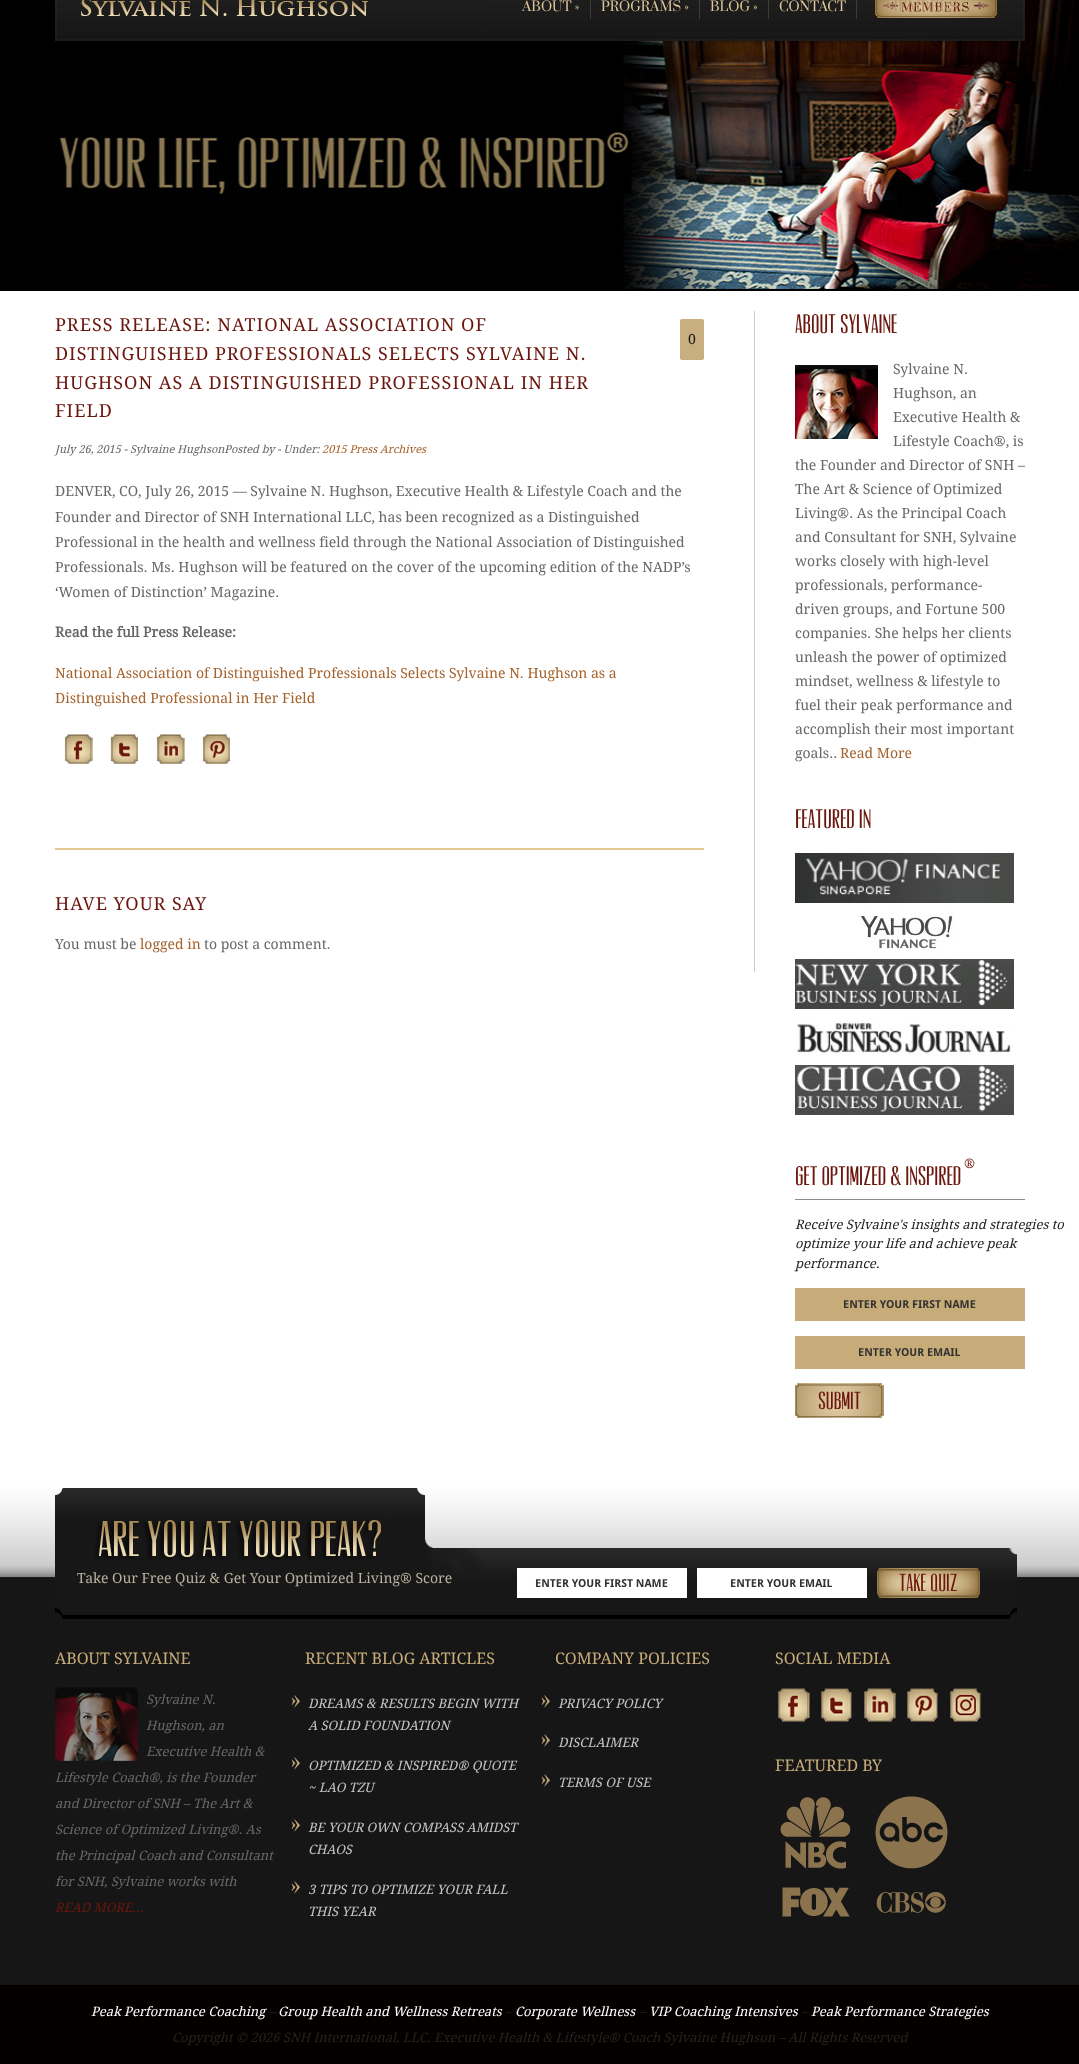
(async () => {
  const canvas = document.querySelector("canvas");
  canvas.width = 1079;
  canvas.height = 2064;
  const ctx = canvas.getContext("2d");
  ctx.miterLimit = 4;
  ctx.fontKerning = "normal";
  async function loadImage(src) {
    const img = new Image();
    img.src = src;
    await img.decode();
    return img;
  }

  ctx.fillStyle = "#ffffff";
  ctx.fillRect(0, 0, 1079, 2064);
  ctx.drawImage(await loadImage("img/1.png"), 0, 0, 1079, 291);
  ctx.fillStyle = "rgba(0, 0, 0, 0.5)";
  ctx.filter = "blur(2.5px)";
  ctx.beginPath();
  ctx.rect(55, -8, 970, 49);
  ctx.fill();
  ctx.filter = "none";
  ctx.drawImage(await loadImage("img/2.png"), 55, 0, 970, 41);
  ctx.drawImage(await loadImage("img/3.png"), 81, 0, 287, 16);
  for (const [x, y, w, h, color] of [
    [590, 0, 1, 19, "#3d3b36"],
    [699, 0, 1, 19, "#3d3b36"],
    [768, 0, 1, 19, "#3d3b36"],
    [856, 0, 1, 19, "#3d3b36"],
  ]) {
    ctx.fillStyle = color;
    ctx.fillRect(x, y, w, h);
  }
  ctx.drawImage(await loadImage("img/4.png"), 875, 0, 122, 18);
  ctx.fillStyle = "#cccccc";
  ctx.fillRect(754, 311, 1, 661);
  ctx.fillStyle = "#c9af7f";
  ctx.beginPath();
  ctx.roundRect(680, 319, 24, 41, 2);
  ctx.fill();
  ctx.drawImage(await loadImage("img/5.png"), 64, 734, 29, 30);
  ctx.drawImage(await loadImage("img/6.png"), 110, 734, 28, 30);
  ctx.drawImage(await loadImage("img/7.png"), 156, 734, 29, 30);
  ctx.drawImage(await loadImage("img/8.png"), 202, 734, 28, 30);
  ctx.fillStyle = "#e4c791";
  ctx.fillRect(55, 848, 649, 2);
  ctx.drawImage(await loadImage("img/9.png"), 795, 365, 83, 74);
  ctx.drawImage(await loadImage("img/10.png"), 795, 853, 219, 50);
  ctx.drawImage(await loadImage("img/11.png"), 860, 911, 95, 40);
  ctx.drawImage(await loadImage("img/12.png"), 795, 959, 219, 50);
  ctx.drawImage(await loadImage("img/13.png"), 795, 1018, 216, 39);
  ctx.drawImage(await loadImage("img/14.png"), 795, 1065, 219, 50);
  for (const [x, y, w, h, color] of [
    [795, 1199, 230, 1, "#8c8a8a"],
    [795, 1288, 230, 33, "#c7ac79"],
    [795, 1336, 230, 33, "#c7ac79"],
  ]) {
    ctx.fillStyle = color;
    ctx.fillRect(x, y, w, h);
  }
  ctx.drawImage(await loadImage("img/15.png"), 795, 1383, 89, 35);
  ctx.fillStyle = "#161616";
  ctx.fillRect(0, 1578, 1079, 407);
  ctx.drawImage(await loadImage("img/16.png"), 0, 1486, 1079, 92);
  ctx.drawImage(await loadImage("img/17.png"), 55, 1488, 962, 131);
  ctx.drawImage(await loadImage("img/18.png"), 95, 1520, 286, 40);
  ctx.fillStyle = "#ffffff";
  ctx.fillRect(517, 1568, 170, 30);
  ctx.fillRect(697, 1568, 170, 30);
  ctx.drawImage(await loadImage("img/19.png"), 877, 1568, 103, 30);
  ctx.drawImage(await loadImage("img/20.png"), 55, 1687, 83, 74);
  ctx.drawImage(await loadImage("img/21.png"), 291, 1695, 9, 13);
  ctx.drawImage(await loadImage("img/21.png"), 291, 1757, 9, 13);
  ctx.drawImage(await loadImage("img/21.png"), 291, 1819, 9, 13);
  ctx.drawImage(await loadImage("img/21.png"), 291, 1881, 9, 13);
  ctx.drawImage(await loadImage("img/21.png"), 541, 1695, 9, 13);
  ctx.drawImage(await loadImage("img/21.png"), 541, 1734, 9, 13);
  ctx.drawImage(await loadImage("img/21.png"), 541, 1774, 9, 13);
  ctx.drawImage(await loadImage("img/22.png"), 775, 1687, 35, 37);
  ctx.drawImage(await loadImage("img/23.png"), 818, 1687, 35, 37);
  ctx.drawImage(await loadImage("img/24.png"), 861, 1687, 35, 37);
  ctx.drawImage(await loadImage("img/25.png"), 904, 1687, 35, 37);
  ctx.drawImage(await loadImage("img/26.png"), 947, 1687, 35, 37);
  ctx.drawImage(await loadImage("img/27.png"), 780, 1797, 71, 72);
  ctx.drawImage(await loadImage("img/28.png"), 875, 1796, 73, 73);
  ctx.drawImage(await loadImage("img/29.png"), 782, 1887, 68, 30);
  ctx.drawImage(await loadImage("img/30.png"), 876, 1892, 70, 21);
  ctx.fillStyle = "#040000";
  ctx.fillRect(0, 1985, 1079, 79);
  ctx.font = "13px Prata";
  ctx.fillStyle = "#ddc69a";
  for (const [text, x, y] of [
    ["ABOUT »", 522, 11],
    ["PROGRAMS »", 601, 11],
    ["BLOG »", 710, 11],
    ["CONTACT", 779, 11],
  ]) {
    ctx.fillText(text, x, y);
  }
  ctx.fillStyle = "#b4936f";
  ctx.fillText("MEMBERS", 885, 11);
  ctx.letterSpacing = "1px";
  ctx.font = "18px Droid Serif";
  ctx.fillStyle = "#6b170e";
  for (const [text, x, y] of [
    ["PRESS RELEASE: NATIONAL ASSOCIATION OF", 55, 331],
    ["DISTINGUISHED PROFESSIONALS SELECTS SYLVAINE N.", 55, 360],
    ["HUGHSON AS A DISTINGUISHED PROFESSIONAL IN HER", 55, 389],
    ["FIELD", 55, 417],
  ]) {
    ctx.fillText(text, x, y);
  }
  ctx.letterSpacing = "0px";
  ctx.font = "14px Droid Serif";
  ctx.fillStyle = "#161616";
  ctx.fillText("0", 688, 344);
  ctx.font = "italic 11px Droid Serif";
  ctx.fillStyle = "#686766";
  ctx.fillText("July 26, 2015 ‐ Sylvaine HughsonPosted by ‐ Under:", 55, 453);
  ctx.fillStyle = "#a5622b";
  ctx.fillText("2015 Press Archives", 322, 453);
  ctx.font = "14px Droid Serif";
  ctx.fillStyle = "#686766";
  for (const [text, x, y] of [
    ["DENVER, CO, July 26, 2015 — Sylvaine N. Hughson, Executive Health & Lifestyle Coach and the", 55, 496],
    ["Founder and Director of SNH International LLC, has been recognized as a Distinguished", 55, 522],
    ["Professional in the health and wellness field through the National Association of Distinguished", 55, 547],
    ["Professionals. Ms. Hughson will be featured on the cover of the upcoming edition of the NADP’s", 55, 572],
    ["‘Women of Distinction’ Magazine.", 55, 597],
  ]) {
    ctx.fillText(text, x, y);
  }
  ctx.font = "bold 14px Droid Serif";
  ctx.fillText("Read the full Press Release:", 55, 637);
  ctx.font = "14px Droid Serif";
  ctx.fillStyle = "#a5622b";
  ctx.fillText("National Association of Distinguished Professionals Selects Sylvaine N. Hughson as a", 55, 678);
  ctx.fillText("Distinguished Professional in Her Field", 55, 703);
  ctx.letterSpacing = "1px";
  ctx.font = "18px Droid Serif";
  ctx.fillStyle = "#6b170e";
  ctx.fillText("HAVE YOUR SAY", 55, 910);
  ctx.letterSpacing = "0px";
  ctx.font = "14px Droid Serif";
  ctx.fillStyle = "#686766";
  ctx.fillText("You must be", 55, 949);
  ctx.fillStyle = "#a5622b";
  ctx.fillText("logged in", 140, 949);
  ctx.fillStyle = "#686766";
  ctx.fillText("to post a comment.", 204, 949);
  ctx.font = "25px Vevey";
  ctx.fillStyle = "#6b170e";
  ctx.fillText("ABOUT SYLVAINE", 795, 333);
  ctx.font = "14px Droid Serif";
  ctx.fillStyle = "#686766";
  for (const [text, x, y] of [
    ["Sylvaine N.", 893, 374],
    ["Hughson, an", 893, 398],
    ["Executive Health &", 893, 422],
    ["Lifestyle Coach®, is", 893, 446],
    ["the Founder and Director of SNH –", 795, 470],
    ["The Art & Science of Optimized", 795, 494],
    ["Living®. As the Principal Coach", 795, 518],
    ["and Consultant for SNH, Sylvaine", 795, 542],
    ["works closely with high-level", 795, 566],
    ["professionals, performance-", 795, 590],
    ["driven groups, and Fortune 500", 795, 614],
    ["companies. She helps her clients", 795, 638],
    ["unleash the power of optimized", 795, 662],
    ["mindset, wellness & lifestyle to", 795, 686],
    ["fuel their peak performance and", 795, 710],
    ["accomplish their most important", 795, 734],
    ["goals..", 795, 758],
  ]) {
    ctx.fillText(text, x, y);
  }
  ctx.fillStyle = "#a5622b";
  ctx.fillText("Read More", 840, 758);
  ctx.font = "25px Vevey";
  ctx.fillStyle = "#6b170e";
  ctx.fillText("FEATURED IN", 795, 828);
  ctx.font = "bold 13px 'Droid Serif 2'";
  ctx.fillText("®", 964, 1168);
  ctx.font = "25px Vevey";
  ctx.fillText("GET OPTIMIZED & INSPIRED", 795, 1185);
  ctx.font = "italic 13px Droid Serif";
  ctx.fillStyle = "#232322";
  for (const [text, x, y] of [
    ["Receive Sylvaine's insights and strategies to", 795, 1229],
    ["optimize your life and achieve peak", 795, 1248],
    ["performance.", 795, 1268],
  ]) {
    ctx.fillText(text, x, y);
  }
  ctx.font = "bold 11px Droid Sans";
  ctx.fillStyle = "#333230";
  ctx.fillText("ENTER YOUR FIRST NAME", 843, 1308);
  ctx.fillText("ENTER YOUR EMAIL", 858, 1356);
  ctx.font = "23px Vevey";
  ctx.fillStyle = "#6b170e";
  ctx.fillText("Submit", 818, 1409);
  ctx.font = "14px Droid Serif";
  ctx.fillStyle = "#bab09e";
  ctx.fillText("Take Our Free Quiz & Get Your Optimized Living® Score", 77, 1583);
  ctx.font = "bold 11px Droid Sans";
  ctx.fillStyle = "#333230";
  ctx.fillText("ENTER YOUR FIRST NAME", 535, 1587);
  ctx.fillText("ENTER YOUR EMAIL", 730, 1587);
  ctx.font = "23px Vevey";
  ctx.fillStyle = "#6b170e";
  ctx.fillText("TAKE QUIZ", 899, 1591);
  ctx.font = "16px Droid Serif";
  ctx.fillStyle = "#c7ac79";
  ctx.fillText("ABOUT SYLVAINE", 55, 1664);
  ctx.font = "italic 13px Droid Serif";
  ctx.fillStyle = "#686766";
  for (const [text, x, y] of [
    ["Sylvaine N.", 146, 1704],
    ["Hughson, an", 146, 1730],
    ["Executive Health &", 146, 1756],
    ["Lifestyle Coach®, is the Founder", 55, 1782],
    ["and Director of SNH – The Art &", 55, 1808],
    ["Science of Optimized Living®. As", 55, 1834],
    ["the Principal Coach and Consultant", 55, 1860],
    ["for SNH, Sylvaine works with", 55, 1886],
  ]) {
    ctx.fillText(text, x, y);
  }
  ctx.fillStyle = "#6b170e";
  ctx.fillText("READ MORE...", 55, 1912);
  ctx.font = "16px Droid Serif";
  ctx.fillStyle = "#c7ac79";
  ctx.fillText("RECENT BLOG ARTICLES", 305, 1664);
  ctx.font = "italic 13px Droid Serif";
  ctx.fillStyle = "#c5c3c3";
  for (const [text, x, y] of [
    ["DREAMS & RESULTS BEGIN WITH", 308, 1708],
    ["A SOLID FOUNDATION", 308, 1730],
    ["OPTIMIZED & INSPIRED® QUOTE", 308, 1770],
    ["~ LAO TZU", 308, 1792],
    ["BE YOUR OWN COMPASS AMIDST", 308, 1832],
    ["CHAOS", 308, 1854],
    ["3 TIPS TO OPTIMIZE YOUR FALL", 308, 1894],
    ["THIS YEAR", 308, 1916],
  ]) {
    ctx.fillText(text, x, y);
  }
  ctx.font = "16px Droid Serif";
  ctx.fillStyle = "#c7ac79";
  ctx.fillText("COMPANY POLICIES", 555, 1664);
  ctx.font = "italic 13px Droid Serif";
  ctx.fillStyle = "#c5c3c3";
  for (const [text, x, y] of [
    ["PRIVACY POLICY", 558, 1708],
    ["DISCLAIMER", 558, 1747],
    ["TERMS OF USE", 558, 1787],
  ]) {
    ctx.fillText(text, x, y);
  }
  ctx.font = "16px Droid Serif";
  ctx.fillStyle = "#c7ac79";
  ctx.fillText("SOCIAL MEDIA", 775, 1664);
  ctx.fillText("FEATURED BY", 775, 1771);
  ctx.font = "italic 13px Droid Serif";
  ctx.fillStyle = "#ffffff";
  ctx.fillText("Peak Performance Coaching", 91, 2016);
  ctx.fillStyle = "#232322";
  ctx.fillText("–", 269, 2016);
  ctx.fillStyle = "#ffffff";
  ctx.fillText("Group Health and Wellness Retreats", 278, 2016);
  ctx.fillStyle = "#232322";
  ctx.fillText("–", 505, 2016);
  ctx.fillStyle = "#ffffff";
  ctx.fillText("Corporate Wellness", 515, 2016);
  ctx.fillStyle = "#232322";
  ctx.fillText("–", 639, 2016);
  ctx.fillStyle = "#ffffff";
  ctx.fillText("VIP Coaching Intensives", 649, 2016);
  ctx.fillStyle = "#232322";
  ctx.fillText("–", 801, 2016);
  ctx.fillStyle = "#ffffff";
  ctx.fillText("Peak Performance Strategies", 811, 2016);
  ctx.fillStyle = "#232322";
  ctx.fillText("Copyright © 2026 SNH International, LLC. Executive Health & Lifestyle® Coach Sylvaine Hughson – All Rights Reserved", 172, 2042);
})();
